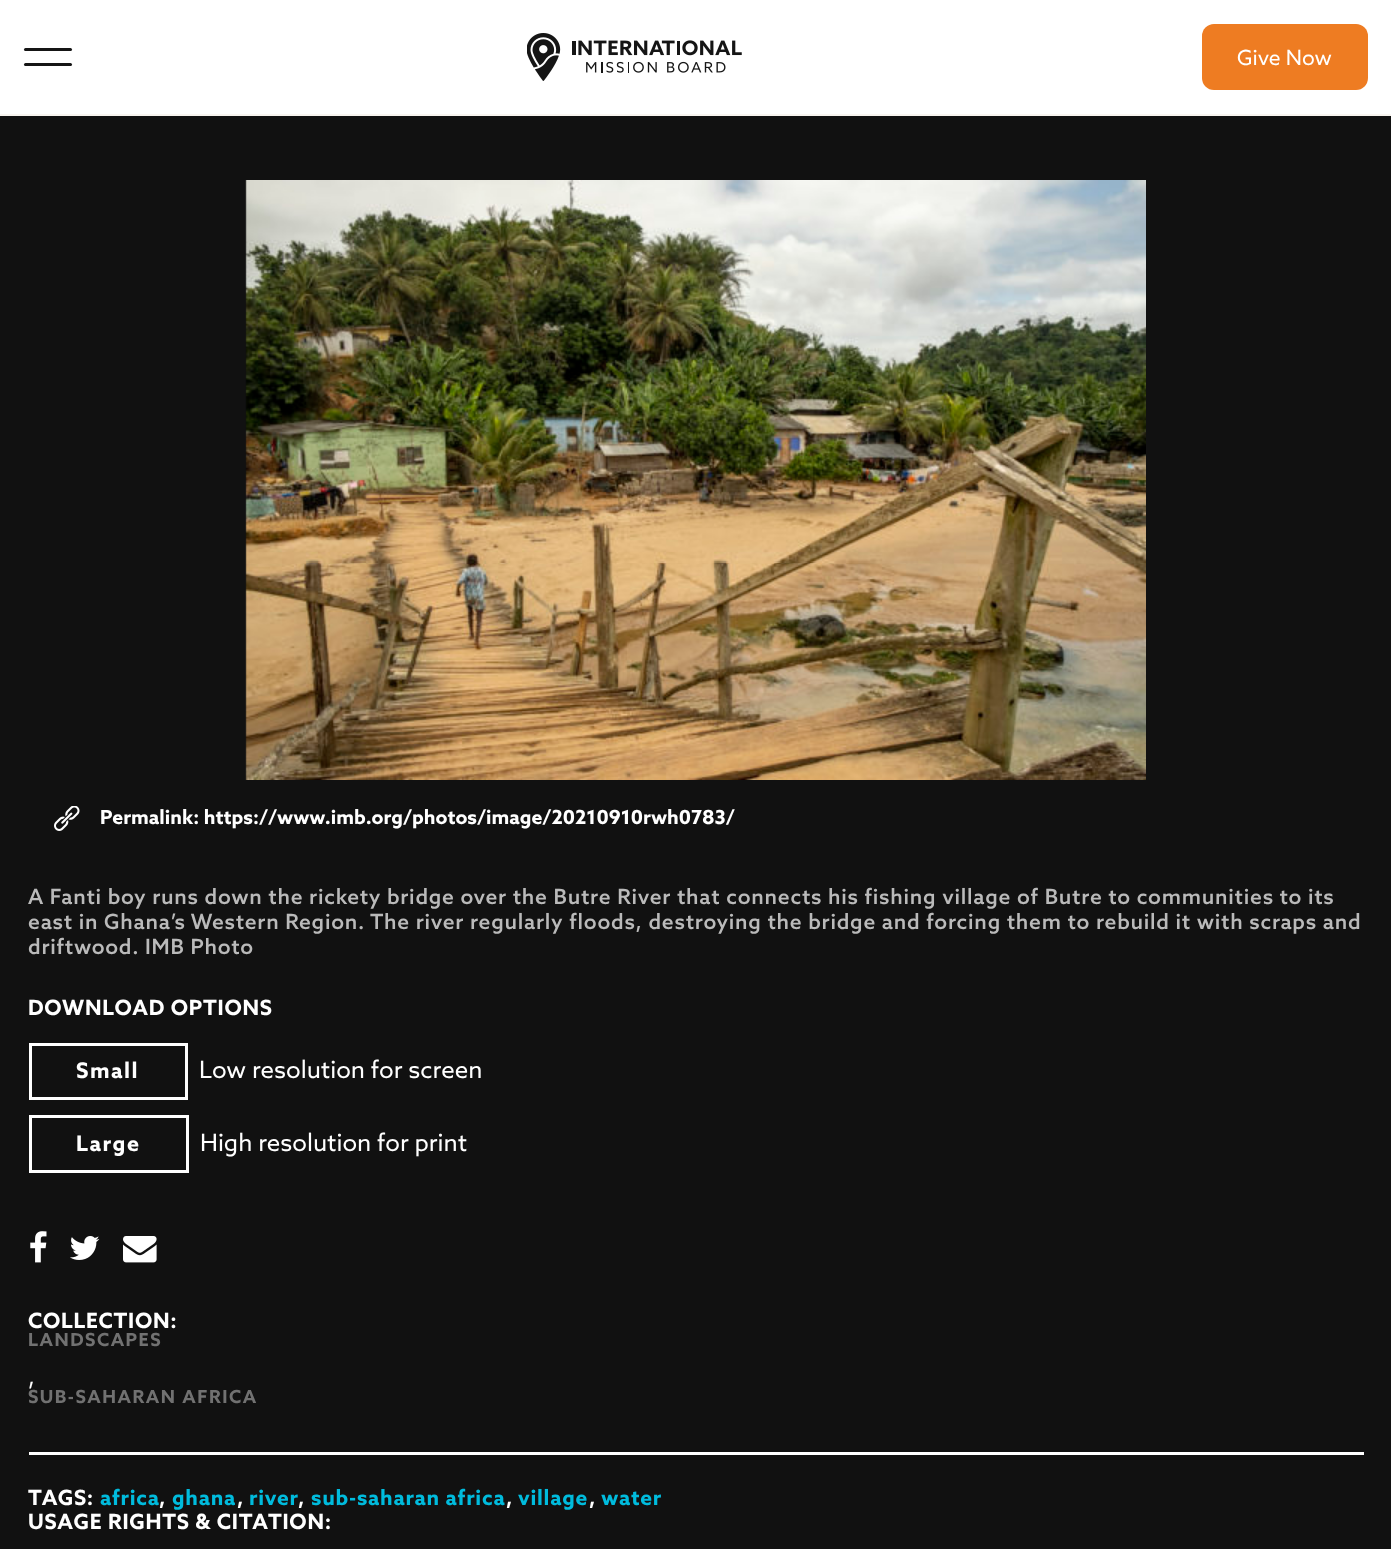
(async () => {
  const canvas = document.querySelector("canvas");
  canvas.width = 1391;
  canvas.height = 1549;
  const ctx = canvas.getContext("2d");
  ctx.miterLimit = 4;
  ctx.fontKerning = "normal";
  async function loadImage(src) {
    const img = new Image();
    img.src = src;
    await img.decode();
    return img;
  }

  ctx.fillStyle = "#111111";
  ctx.fillRect(0, 0, 1391, 1549);
  ctx.fillStyle = "#ffffff";
  ctx.fillRect(0, 0, 1391, 114);
  ctx.fillStyle = "#f8f5f0";
  ctx.fillRect(0, 114, 1391, 2);
  ctx.fillStyle = "#151515";
  ctx.beginPath();
  ctx.roundRect(24, 48, 48, 3, 1.5);
  ctx.fill();
  ctx.beginPath();
  ctx.roundRect(24, 63, 48, 3, 1.5);
  ctx.fill();
  ctx.drawImage(await loadImage("img/1.png"), 527, 33, 215, 48);
  ctx.fillStyle = "#ee7c22";
  ctx.beginPath();
  ctx.roundRect(1202, 24, 166, 66, 12);
  ctx.fill();
  ctx.drawImage(await loadImage("img/2.png"), 245, 180, 901, 600);
  ctx.drawImage(await loadImage("img/3.png"), 54, 806, 26, 25);
  ctx.strokeStyle = "#ffffff";
  ctx.lineWidth = 3;
  ctx.strokeRect(30.5, 1044.5, 156, 54);
  ctx.strokeRect(30.5, 1116.5, 157, 55);
  ctx.drawImage(await loadImage("img/4.png"), 30, 1231, 17, 32);
  ctx.drawImage(await loadImage("img/5.png"), 70, 1236, 30, 24);
  ctx.drawImage(await loadImage("img/6.png"), 123, 1236, 34, 27);
  ctx.fillStyle = "#ffffff";
  ctx.fillRect(29, 1452, 1335, 3);
  ctx.font = "21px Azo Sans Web";
  ctx.fillText("Give Now", 1237, 65);
  ctx.font = "bold 19.5px Azo Sans Web";
  ctx.fillText("Permalink: https://www.imb.org/photos/image/20210910rwh0783/", 100, 824);
  ctx.letterSpacing = "0.75px";
  ctx.font = "500 21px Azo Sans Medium";
  ctx.fillStyle = "#bababa";
  for (const [text, x, y] of [
    ["A Fanti boy runs down the rickety bridge over the Butre River that connects his fishing village of Butre to communities to its", 28, 904],
    ["east in Ghana’s Western Region. The river regularly floods, destroying the bridge and forcing them to rebuild it with scraps and", 28, 929],
    ["driftwood. IMB Photo", 28, 954],
  ]) {
    ctx.fillText(text, x, y);
  }
  ctx.font = "bold 21px Azo Sans Web";
  ctx.fillStyle = "#ffffff";
  ctx.fillText("DOWNLOAD OPTIONS", 28, 1015);
  ctx.letterSpacing = "1.5px";
  ctx.font = "bold 21.5px Azo Sans Web";
  ctx.fillText("Small", 76, 1078);
  ctx.letterSpacing = "0px";
  ctx.font = "24px Azo Sans Web";
  ctx.fillText("Low resolution for screen", 199, 1078);
  ctx.letterSpacing = "1.5px";
  ctx.font = "bold 21.5px Azo Sans Web";
  ctx.fillText("Large", 76, 1151);
  ctx.letterSpacing = "0px";
  ctx.font = "24px Azo Sans Web";
  ctx.fillText("High resolution for print", 200, 1151);
  ctx.letterSpacing = "0.75px";
  ctx.font = "bold 21px Azo Sans Web";
  ctx.fillText("COLLECTION:", 28, 1328);
  ctx.letterSpacing = "1.5px";
  ctx.font = "bold 18px Azo Sans Web";
  ctx.fillStyle = "#717171";
  ctx.fillText("LANDSCAPES", 28, 1346);
  ctx.letterSpacing = "0px";
  ctx.font = "24px Azo Sans Web";
  ctx.fillStyle = "#ffffff";
  ctx.fillText(",", 28, 1385);
  ctx.letterSpacing = "1.5px";
  ctx.font = "bold 18px Azo Sans Web";
  ctx.fillStyle = "#717171";
  ctx.fillText("SUB-SAHARAN AFRICA", 28, 1403);
  ctx.letterSpacing = "0.75px";
  ctx.font = "bold 21px Azo Sans Web";
  ctx.fillStyle = "#ffffff";
  ctx.fillText("TAGS:", 28, 1505);
  ctx.fillStyle = "#00bbdd";
  ctx.fillText("africa", 100, 1505);
  ctx.fillStyle = "#ffffff";
  ctx.fillText(",", 159, 1505);
  ctx.fillStyle = "#00bbdd";
  ctx.fillText("ghana", 172, 1505);
  ctx.fillStyle = "#ffffff";
  ctx.fillText(",", 237, 1505);
  ctx.fillStyle = "#00bbdd";
  ctx.fillText("river", 249, 1505);
  ctx.fillStyle = "#ffffff";
  ctx.fillText(",", 298, 1505);
  ctx.fillStyle = "#00bbdd";
  ctx.fillText("sub-saharan africa", 311, 1505);
  ctx.fillStyle = "#ffffff";
  ctx.fillText(",", 506, 1505);
  ctx.fillStyle = "#00bbdd";
  ctx.fillText("village", 518, 1505);
  ctx.fillStyle = "#ffffff";
  ctx.fillText(",", 589, 1505);
  ctx.fillStyle = "#00bbdd";
  ctx.fillText("water", 601, 1505);
  ctx.fillStyle = "#ffffff";
  ctx.fillText("USAGE RIGHTS & CITATION:", 28, 1529);
})();
